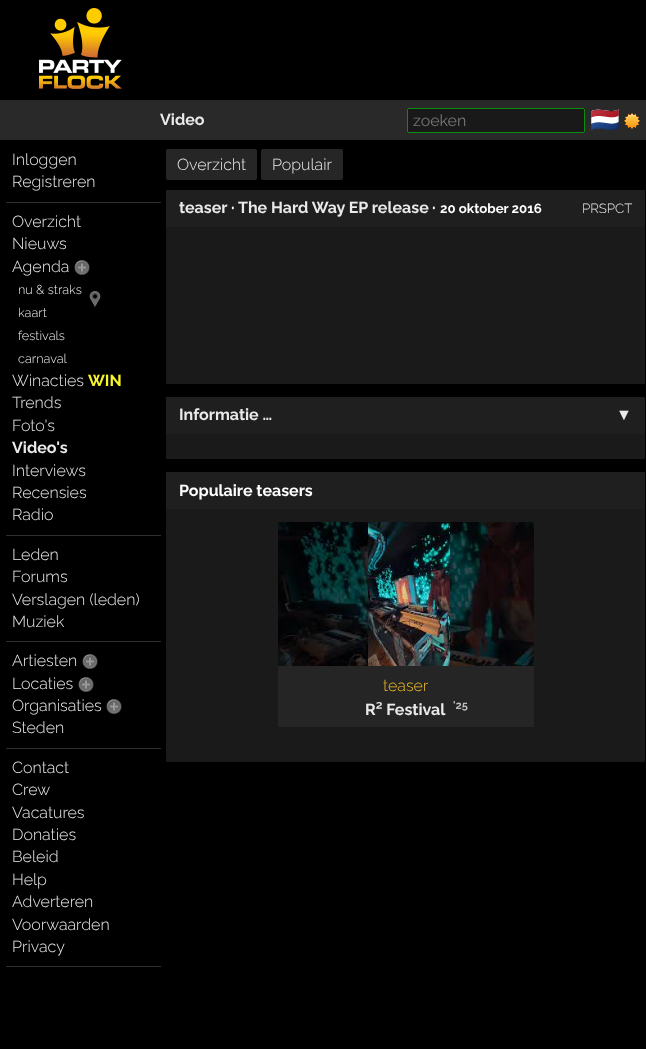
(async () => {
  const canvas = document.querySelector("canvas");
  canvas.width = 646;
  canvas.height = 1049;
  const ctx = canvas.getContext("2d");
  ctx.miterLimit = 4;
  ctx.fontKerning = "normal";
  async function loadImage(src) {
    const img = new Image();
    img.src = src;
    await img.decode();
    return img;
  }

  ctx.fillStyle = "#000000";
  ctx.fillRect(0, 0, 646, 1049);
  ctx.drawImage(await loadImage("img/1.png"), 39, 8, 83, 81);
  ctx.fillStyle = "#292929";
  ctx.fillRect(0, 100, 646, 40);
  ctx.fillStyle = "#191919";
  ctx.beginPath();
  ctx.roundRect(407.5, 108.5, 177, 24, 1.5);
  ctx.fill();
  ctx.strokeStyle = "#0d8c0d";
  ctx.stroke();
  ctx.drawImage(await loadImage("img/2.png"), 624, 113, 16, 16);
  ctx.fillStyle = "#2e2e2e";
  ctx.fillRect(6, 202, 155, 1);
  ctx.drawImage(await loadImage("img/3.png"), 74, 260, 16, 15);
  ctx.drawImage(await loadImage("img/4.png"), 89, 291, 12, 16);
  ctx.fillRect(6, 535, 155, 1);
  ctx.fillRect(6, 641, 155, 1);
  ctx.drawImage(await loadImage("img/3.png"), 82, 654, 16, 15);
  ctx.drawImage(await loadImage("img/3.png"), 78, 677, 16, 15);
  ctx.drawImage(await loadImage("img/3.png"), 106, 699, 16, 15);
  ctx.fillRect(6, 748, 155, 1);
  ctx.fillRect(6, 966, 155, 1);
  ctx.fillStyle = "#262626";
  ctx.beginPath();
  ctx.roundRect(166, 149, 91, 31, 2);
  ctx.fill();
  ctx.beginPath();
  ctx.roundRect(261, 149, 82, 31, 2);
  ctx.fill();
  ctx.fillStyle = "#1a1a1a";
  ctx.beginPath();
  ctx.roundRect(166, 190, 479, 194, 1);
  ctx.fill();
  ctx.fillStyle = "#1f1f1f";
  ctx.fillRect(166, 190, 479, 37);
  ctx.fillStyle = "#1a1a1a";
  ctx.beginPath();
  ctx.roundRect(166, 397, 479, 62, 1);
  ctx.fill();
  ctx.fillStyle = "#1f1f1f";
  ctx.fillRect(166, 397, 479, 37);
  ctx.fillStyle = "#1a1a1a";
  ctx.beginPath();
  ctx.roundRect(166, 472, 479, 290, 1);
  ctx.fill();
  ctx.fillStyle = "#1f1f1f";
  ctx.fillRect(166, 472, 479, 37);
  ctx.drawImage(await loadImage("img/5.png"), 278, 522, 256, 144);
  ctx.fillStyle = "#252525";
  ctx.fillRect(278, 666, 256, 61);
  ctx.font = "bold 16px Raleway";
  ctx.fillStyle = "#eaeaea";
  ctx.fillText("Video", 160, 125);
  ctx.font = "16px Raleway";
  ctx.fillStyle = "#777777";
  ctx.fillText("zoeken", 413, 126);
  ctx.font = "24px Noto Color Emoji";
  ctx.fillStyle = "#eaeaea";
  ctx.fillText("🇳🇱", 590, 128);
  ctx.font = "300 16px Raleway";
  for (const [text, x, y] of [
    ["Inloggen", 12, 165],
    ["Registreren", 12, 187],
    ["Overzicht", 12, 227],
    ["Nieuws", 12, 249],
    ["Agenda", 12, 272],
  ]) {
    ctx.fillText(text, x, y);
  }
  ctx.font = "300 12.75px Raleway";
  for (const [text, x, y] of [
    ["nu & straks", 18, 294],
    ["kaart", 18, 317],
    ["festivals", 18, 340],
    ["carnaval", 18, 363],
  ]) {
    ctx.fillText(text, x, y);
  }
  ctx.font = "300 16px Raleway";
  ctx.fillText("Winacties", 12, 386);
  ctx.font = "bold 16px Raleway";
  ctx.fillStyle = "#f6f62a";
  ctx.fillText("WIN", 88, 386);
  ctx.font = "300 16px Raleway";
  ctx.fillStyle = "#eaeaea";
  ctx.fillText("Trends", 12, 408);
  ctx.fillText("Foto's", 12, 431);
  ctx.font = "bold 16px Raleway";
  ctx.fillText("Video's", 12, 453);
  ctx.font = "300 16px Raleway";
  for (const [text, x, y] of [
    ["Interviews", 12, 476],
    ["Recensies", 12, 498],
    ["Radio", 12, 520],
    ["Leden", 12, 560],
    ["Forums", 12, 582],
    ["Verslagen (leden)", 12, 605],
    ["Muziek", 12, 627],
    ["Artiesten", 12, 666],
    ["Locaties", 12, 689],
    ["Organisaties", 12, 711],
    ["Steden", 12, 733],
    ["Contact", 12, 773],
    ["Crew", 12, 795],
    ["Vacatures", 12, 818],
    ["Donaties", 12, 840],
    ["Beleid", 12, 862],
    ["Help", 12, 885],
    ["Adverteren", 12, 907],
    ["Voorwaarden", 12, 930],
    ["Privacy", 12, 952],
    ["Overzicht", 177, 170],
    ["Populair", 272, 170],
  ]) {
    ctx.fillText(text, x, y);
  }
  ctx.font = "bold 16px Raleway";
  ctx.fillText("teaser", 179, 213);
  ctx.fillStyle = "#ffffff";
  ctx.fillText("·", 231, 213);
  ctx.fillStyle = "#eaeaea";
  ctx.fillText("The Hard Way EP release", 238, 213);
  ctx.fillStyle = "#ffffff";
  ctx.fillText("·", 432, 213);
  ctx.font = "bold 13.25px Raleway";
  ctx.fillText("20 oktober 2016", 440, 213);
  ctx.font = "300 13.25px Raleway";
  ctx.fillStyle = "#eaeaea";
  ctx.fillText("PRSPCT", 582, 213);
  ctx.font = "bold 16px Raleway";
  ctx.fillText("Informatie …", 179, 420);
  ctx.font = "16px Liberation Sans";
  ctx.fillText("▼", 616, 420);
  ctx.font = "bold 16px Raleway";
  ctx.fillStyle = "#ffffff";
  ctx.fillText("Populaire teasers", 179, 496);
  ctx.font = "300 16px Raleway";
  ctx.fillStyle = "#ecba2c";
  ctx.fillText("teaser", 383, 691);
  ctx.font = "bold 16px Raleway";
  ctx.fillStyle = "#eaeaea";
  ctx.fillText("R² Festival", 365, 715);
  ctx.font = "bold 11px Raleway";
  ctx.fillStyle = "#bebebe";
  ctx.fillText("'25", 453, 709);
})();
